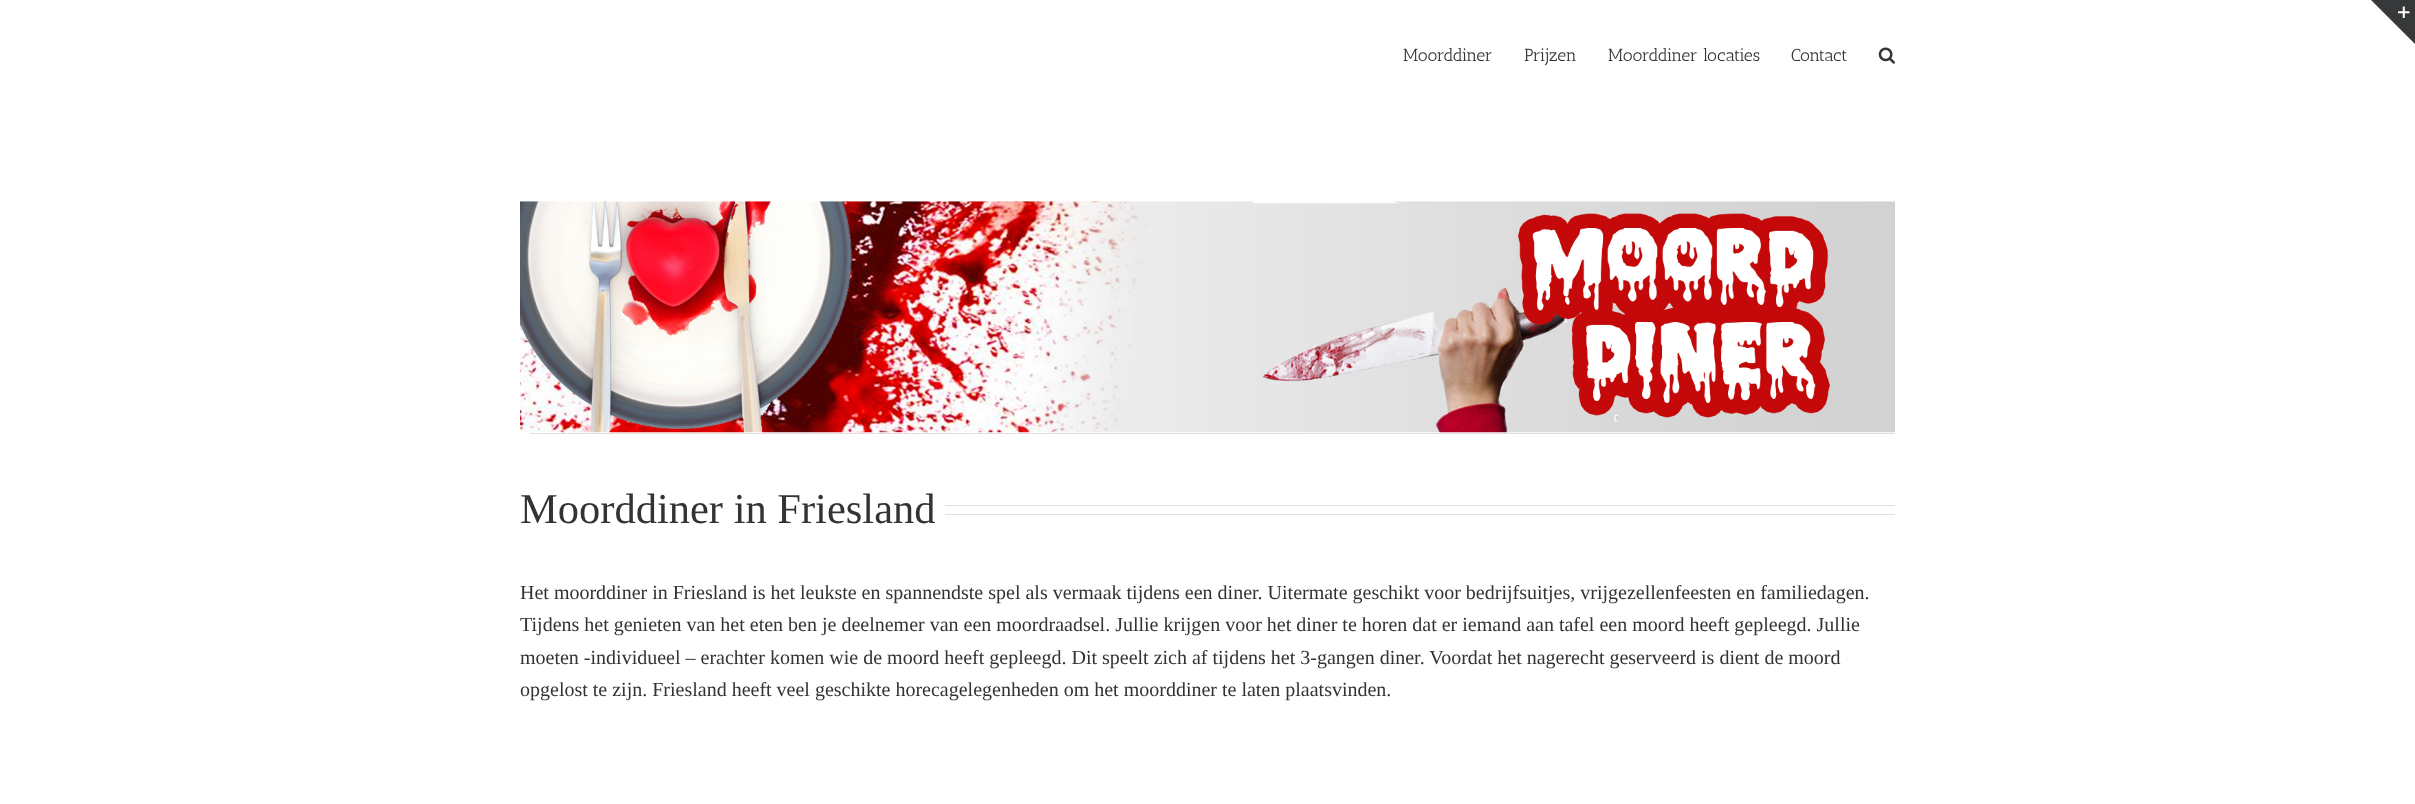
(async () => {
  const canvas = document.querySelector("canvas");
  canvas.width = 2415;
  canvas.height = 804;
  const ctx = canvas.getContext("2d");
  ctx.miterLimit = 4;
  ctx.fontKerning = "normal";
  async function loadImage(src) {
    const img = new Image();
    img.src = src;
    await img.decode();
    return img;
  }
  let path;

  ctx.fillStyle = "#ffffff";
  ctx.fillRect(0, 0, 2415, 804);
  ctx.fillStyle = "#363839";
  path = new Path2D("M2371 0H2415V44Z");
  ctx.fill(path);
  ctx.drawImage(await loadImage("img/1.png"), 2398, 6, 12, 12);
  ctx.drawImage(await loadImage("img/2.png"), 1878, 47, 17, 17);
  ctx.drawImage(await loadImage("img/3.png"), 520, 201, 1375, 232);
  for (const [x, y, w, h, color] of [
    [530, 433, 1365, 1, "#e0dede"],
    [945, 505, 950, 1, "#e0dede"],
    [945, 514, 950, 1, "#e0dede"],
  ]) {
    ctx.fillStyle = color;
    ctx.fillRect(x, y, w, h);
  }
  ctx.font = "17.5px Antic Slab";
  ctx.fillStyle = "#333333";
  for (const [text, x, y] of [
    ["Moorddiner", 1403, 61],
    ["Prijzen", 1524, 61],
    ["Moorddiner locaties", 1608, 61],
    ["Contact", 1791, 61],
  ]) {
    ctx.fillText(text, x, y);
  }
  ctx.font = "42.5px Liberation Serif";
  ctx.fillText("Moorddiner in Friesland", 520, 523);
  ctx.font = "20px Liberation Serif";
  for (const [text, x, y] of [
    ["Het moorddiner in Friesland is het leukste en spannendste spel als vermaak tijdens een diner. Uitermate geschikt voor bedrijfsuitjes, vrijgezellenfeesten en familiedagen.", 520, 599],
    ["Tijdens het genieten van het eten ben je deelnemer van een moordraadsel. Jullie krijgen voor het diner te horen dat er iemand aan tafel een moord heeft gepleegd. Jullie", 520, 631],
    ["moeten -individueel – erachter komen wie de moord heeft gepleegd. Dit speelt zich af tijdens het 3-gangen diner. Voordat het nagerecht geserveerd is dient de moord", 520, 664],
    ["opgelost te zijn. Friesland heeft veel geschikte horecagelegenheden om het moorddiner te laten plaatsvinden.", 520, 696],
  ]) {
    ctx.fillText(text, x, y);
  }
})();
